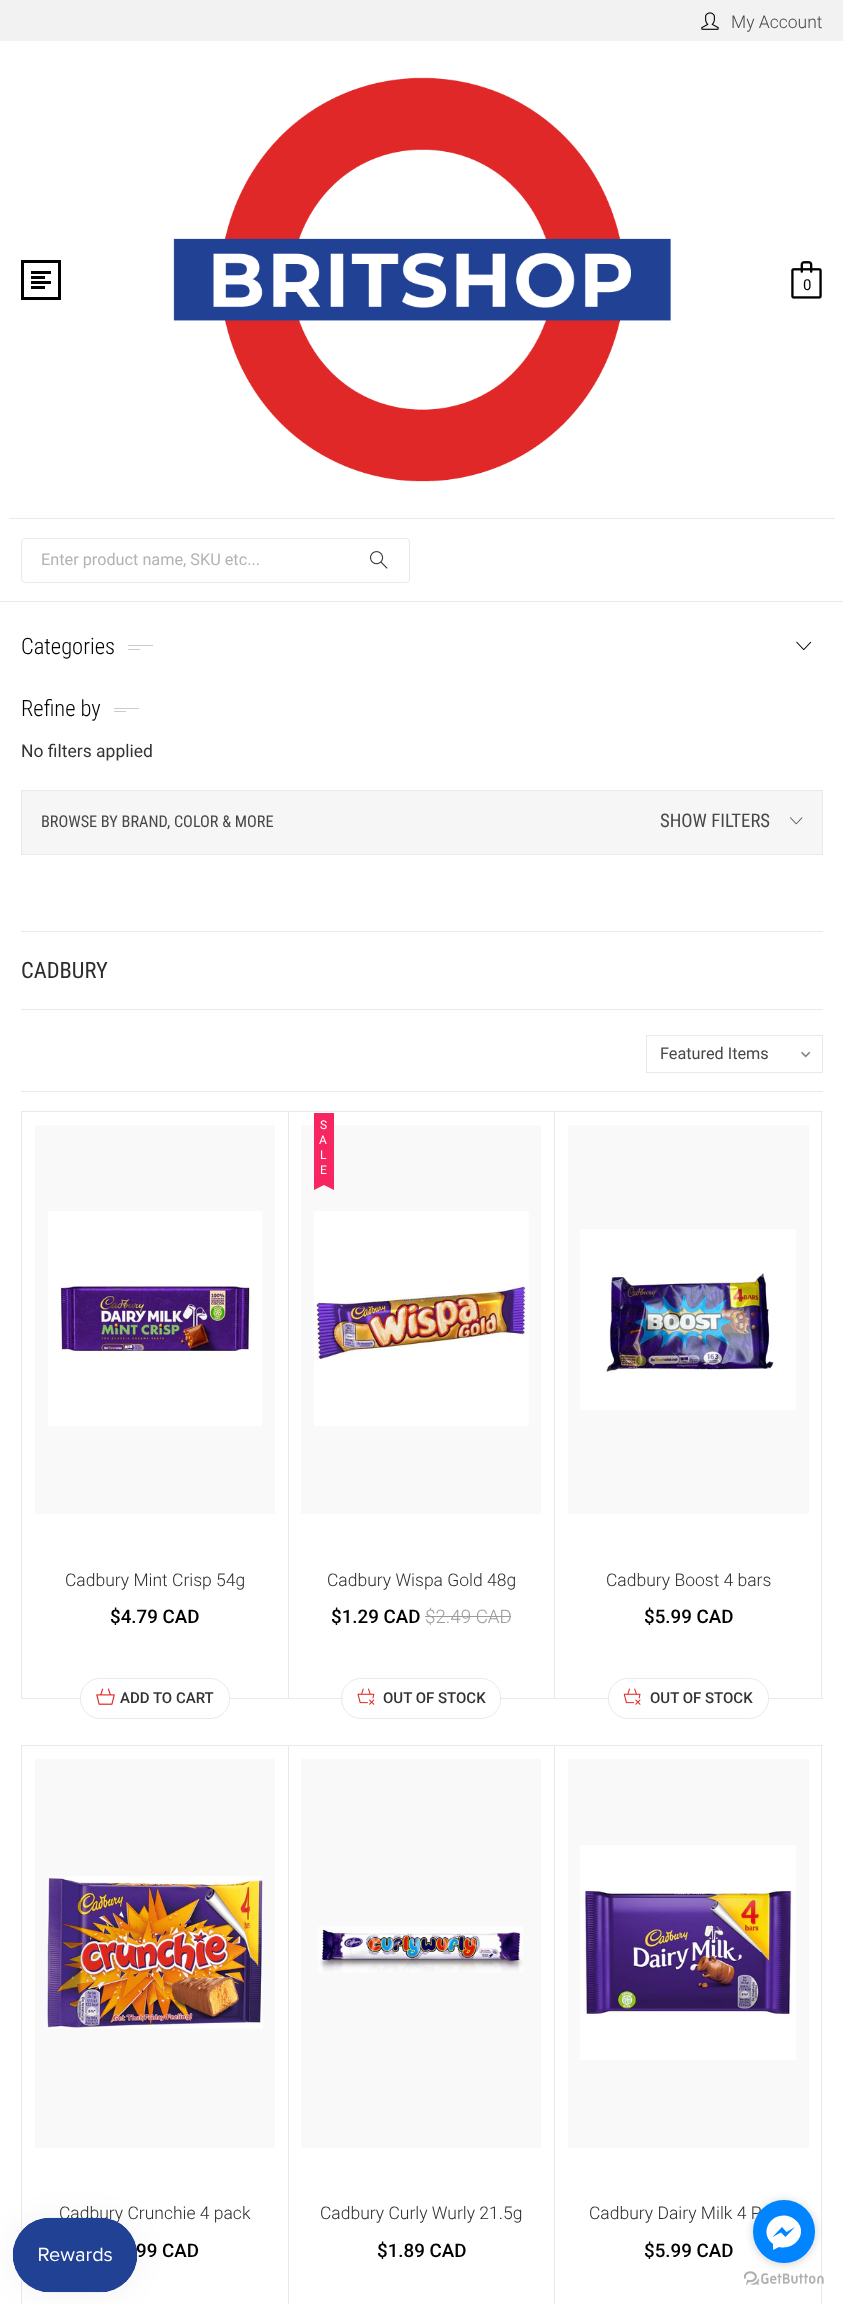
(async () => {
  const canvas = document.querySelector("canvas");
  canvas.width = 843;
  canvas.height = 2304;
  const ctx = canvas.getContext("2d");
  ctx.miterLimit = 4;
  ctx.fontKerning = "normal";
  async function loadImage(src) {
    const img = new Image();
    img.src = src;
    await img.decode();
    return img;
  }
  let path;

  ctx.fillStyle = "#ffffff";
  ctx.fillRect(0, 0, 843, 2304);
  ctx.fillStyle = "#e9e9e9";
  ctx.fillRect(0, 601, 843, 1);
  ctx.fillStyle = "#f2f2f2";
  ctx.fillRect(0, 0, 843, 41);
  ctx.drawImage(await loadImage("img/1.png"), 701, 12, 18, 18);
  ctx.fillStyle = "#e9e9e9";
  ctx.fillRect(9, 518, 826, 1);
  ctx.strokeStyle = "#000000";
  ctx.lineWidth = 3;
  ctx.strokeRect(22.5, 261.5, 37, 37);
  for (const [x, y, w, h, color] of [
    [31, 271, 20, 3, "#000000"],
    [31, 281, 20, 3, "#000000"],
    [31, 276, 14, 3, "#000000"],
    [31, 286, 14, 3, "#000000"],
  ]) {
    ctx.fillStyle = color;
    ctx.fillRect(x, y, w, h);
  }
  ctx.drawImage(await loadImage("img/2.png"), 173, 77, 498, 405);
  ctx.drawImage(await loadImage("img/3.png"), 791, 261, 31, 38);
  ctx.beginPath();
  ctx.roundRect(21.5, 538.5, 388, 44, 3.5);
  ctx.strokeStyle = "#e9e9e9";
  ctx.lineWidth = 1;
  ctx.stroke();
  ctx.drawImage(await loadImage("img/4.png"), 370, 551, 18, 18);
  for (const [x, y, w, h, color] of [
    [21, 931, 802, 1, "#e9e9e9"],
    [128, 645, 25, 1, "#cccccc"],
    [128, 649, 12, 1, "#cccccc"],
  ]) {
    ctx.fillStyle = color;
    ctx.fillRect(x, y, w, h);
  }
  ctx.drawImage(await loadImage("img/5.png"), 796, 641, 16, 10);
  ctx.fillRect(114, 708, 25, 1);
  ctx.fillRect(114, 711, 12, 1);
  ctx.fillStyle = "#f6f6f6";
  ctx.beginPath();
  ctx.rect(21.5, 790.5, 801, 64);
  ctx.fill();
  ctx.stroke();
  ctx.drawImage(await loadImage("img/6.png"), 790, 817, 13, 8);
  ctx.fillStyle = "#e9e9e9";
  ctx.fillRect(21, 1091, 802, 1);
  ctx.fillRect(21, 1009, 802, 1);
  ctx.drawImage(await loadImage("img/7.png"), 801, 1051, 10, 7);
  ctx.strokeRect(646.5, 1035.5, 176, 37);
  ctx.strokeRect(21.5, 1111.5, 267, 587);
  ctx.fillStyle = "#f9f9f9";
  ctx.fillRect(35, 1125, 240, 389);
  ctx.drawImage(await loadImage("img/8.png"), 48, 1211, 214, 215);
  ctx.beginPath();
  ctx.roundRect(80.5, 1678.5, 149, 40, 19.5);
  ctx.stroke();
  ctx.save();
  ctx.beginPath();
  ctx.roundRect(81, 1679, 148, 39, 19);
  ctx.clip();
  ctx.fillStyle = "#ffffff";
  ctx.beginPath();
  ctx.roundRect(81, 1679, 148, 39, 19.5);
  ctx.fill();
  ctx.restore();
  ctx.drawImage(await loadImage("img/9.png"), 96, 1688, 19, 17);
  for (const [x, y, w, h, color] of [
    [289, 1111, 534, 1, "#e9e9e9"],
    [554, 1111, 1, 588, "#e9e9e9"],
    [289, 1698, 266, 1, "#e9e9e9"],
    [301, 1125, 240, 389, "#f9f9f9"],
    [314, 1113, 20, 72, "#f72560"],
  ]) {
    ctx.fillStyle = color;
    ctx.fillRect(x, y, w, h);
  }
  path = new Path2D("M314 1190V1180L324 1185ZM334 1180V1190L324 1185Z");
  ctx.fill(path);
  ctx.drawImage(await loadImage("img/10.png"), 314, 1211, 215, 215);
  ctx.fillStyle = "#9b9b9b";
  ctx.fillRect(425, 1616, 86, 1);
  ctx.beginPath();
  ctx.roundRect(341.5, 1678.5, 159, 40, 19.5);
  ctx.stroke();
  ctx.save();
  ctx.beginPath();
  ctx.roundRect(343, 1679, 157, 39, 19);
  ctx.clip();
  ctx.fillStyle = "#ffffff";
  ctx.beginPath();
  ctx.roundRect(343, 1679, 157, 39, 19.5);
  ctx.fill();
  ctx.restore();
  ctx.drawImage(await loadImage("img/11.png"), 357, 1688, 18, 17);
  for (const [x, y, w, h, color] of [
    [821, 1111, 1, 588, "#e9e9e9"],
    [555, 1698, 268, 1, "#e9e9e9"],
    [568, 1125, 241, 389, "#f9f9f9"],
  ]) {
    ctx.fillStyle = color;
    ctx.fillRect(x, y, w, h);
  }
  ctx.drawImage(await loadImage("img/12.png"), 580, 1229, 216, 181);
  ctx.beginPath();
  ctx.roundRect(608.5, 1678.5, 160, 40, 19.5);
  ctx.stroke();
  ctx.save();
  ctx.beginPath();
  ctx.roundRect(609, 1679, 159, 39, 19);
  ctx.clip();
  ctx.fillStyle = "#ffffff";
  ctx.beginPath();
  ctx.roundRect(609, 1679, 159, 39, 19.5);
  ctx.fill();
  ctx.restore();
  ctx.drawImage(await loadImage("img/13.png"), 623, 1688, 18, 17);
  ctx.strokeRect(21.5, 1745.5, 267, 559);
  ctx.fillRect(35, 1759, 240, 389);
  ctx.drawImage(await loadImage("img/14.png"), 47, 1876, 216, 153);
  for (const [x, y, w, h, color] of [
    [289, 1745, 534, 1, "#e9e9e9"],
    [554, 1745, 1, 559, "#e9e9e9"],
    [301, 1759, 240, 389, "#f9f9f9"],
  ]) {
    ctx.fillStyle = color;
    ctx.fillRect(x, y, w, h);
  }
  ctx.drawImage(await loadImage("img/15.png"), 318, 1926, 205, 47);
  ctx.fillStyle = "#e9e9e9";
  ctx.fillRect(821, 1745, 1, 559);
  ctx.fillStyle = "#f9f9f9";
  ctx.fillRect(568, 1759, 241, 389);
  ctx.drawImage(await loadImage("img/16.png"), 580, 1845, 216, 215);
  ctx.fillStyle = "rgba(0, 0, 0, 0.05)";
  ctx.filter = "blur(15.5px)";
  ctx.beginPath();
  ctx.roundRect(13, 2218, 125, 75, 37.5);
  ctx.fill();
  ctx.filter = "none";
  ctx.drawImage(await loadImage("img/18.png"), 744, 2271, 80, 14);
  ctx.fillStyle = "rgba(136, 136, 136, 0.4)";
  ctx.filter = "blur(4.5px)";
  ctx.beginPath();
  ctx.roundRect(753, 2201, 62, 63, 31);
  ctx.fill();
  ctx.filter = "none";
  ctx.font = "300 17.5px Roboto";
  ctx.fillStyle = "#474747";
  ctx.fillText("My Account", 731, 28);
  ctx.font = "15px Roboto";
  ctx.fillStyle = "#000000";
  ctx.fillText("0", 803, 290);
  ctx.font = "16.25px Roboto";
  ctx.fillStyle = "#b3b3b3";
  ctx.fillText("Enter product name, SKU etc...", 41, 565);
  ctx.font = "300 22.5px Roboto Condensed";
  ctx.fillStyle = "#000000";
  ctx.fillText("Categories", 21, 654);
  ctx.fillText("Refine by", 21, 716);
  ctx.font = "17.5px Roboto";
  ctx.fillStyle = "#333333";
  ctx.fillText("No filters applied", 21, 757);
  ctx.font = "16.25px Roboto Condensed";
  ctx.fillStyle = "#474747";
  ctx.fillText("BROWSE BY BRAND, COLOR & MORE", 41, 827);
  ctx.font = "18.75px Roboto Condensed";
  ctx.fillText("SHOW FILTERS", 660, 827);
  ctx.font = "22.5px Roboto Condensed";
  ctx.fillStyle = "#2d2d2d";
  ctx.fillText("CADBURY", 21, 978);
  ctx.font = "16.25px Roboto";
  ctx.fillStyle = "#474747";
  ctx.fillText("Featured Items", 660, 1059);
  ctx.font = "300 17.5px Roboto";
  ctx.fillStyle = "#2d2d2d";
  ctx.fillText("Cadbury Mint Crisp 54g", 65, 1586);
  ctx.font = "500 18.75px Roboto";
  ctx.fillStyle = "#000000";
  ctx.fillText("$4.79 CAD", 110, 1623);
  ctx.font = "500 15px Roboto";
  ctx.fillStyle = "#333333";
  ctx.fillText("ADD TO CART", 120, 1703);
  ctx.font = "12px Roboto";
  ctx.fillStyle = "#ffffff";
  for (const [text, x, y] of [
    ["S", 320, 1129],
    ["A", 319, 1144],
    ["L", 320, 1159],
    ["E", 320, 1174],
  ]) {
    ctx.fillText(text, x, y);
  }
  ctx.font = "300 17.5px Roboto";
  ctx.fillStyle = "#2d2d2d";
  ctx.fillText("Cadbury Wispa Gold 48g", 327, 1586);
  ctx.font = "500 18.75px Roboto";
  ctx.fillStyle = "#000000";
  ctx.fillText("$1.29 CAD", 331, 1623);
  ctx.font = "300 18.75px Roboto";
  ctx.fillStyle = "#9b9b9b";
  ctx.fillText("$2.49 CAD", 425, 1623);
  ctx.font = "500 15px Roboto";
  ctx.fillStyle = "#333333";
  ctx.fillText("OUT OF STOCK", 383, 1703);
  ctx.font = "300 17.5px Roboto";
  ctx.fillStyle = "#2d2d2d";
  ctx.fillText("Cadbury Boost 4 bars", 606, 1586);
  ctx.font = "500 18.75px Roboto";
  ctx.fillStyle = "#000000";
  ctx.fillText("$5.99 CAD", 644, 1623);
  ctx.font = "500 15px Roboto";
  ctx.fillStyle = "#333333";
  ctx.fillText("OUT OF STOCK", 650, 1703);
  ctx.font = "300 17.5px Roboto";
  ctx.fillStyle = "#2d2d2d";
  ctx.fillText("Cadbury Crunchie 4 pack", 59, 2219);
  ctx.font = "500 18.75px Roboto";
  ctx.fillStyle = "#000000";
  ctx.fillText("99 CAD", 136, 2257);
  ctx.font = "300 17.5px Roboto";
  ctx.fillStyle = "#2d2d2d";
  ctx.fillText("Cadbury Curly Wurly 21.5g", 320, 2219);
  ctx.font = "500 18.75px Roboto";
  ctx.fillStyle = "#000000";
  ctx.fillText("$1.89 CAD", 377, 2257);
  ctx.font = "300 17.5px Roboto";
  ctx.fillStyle = "#2d2d2d";
  ctx.fillText("Cadbury Dairy Milk 4 P", 589, 2219);
  ctx.font = "500 18.75px Roboto";
  ctx.fillStyle = "#000000";
  ctx.fillText("$5.99 CAD", 644, 2257);
  ctx.drawImage(await loadImage("img/17.png"), 12, 2217, 126, 76);
  ctx.fillStyle = "#0084ff";
  ctx.beginPath();
  ctx.roundRect(753, 2200, 62, 63, 31);
  ctx.fill();
  ctx.fillStyle = "#ffffff";
  path = new Path2D("M784 2215.5C768 2215.5 760 2234.5 773 2244V2250L779 2247C795 2251 809 2232.5 796 2220.5C792.5 2217 788 2215.5 784 2215.5ZM785.5 2237L781 2232.5L772.5 2237L782 2227L786.5 2232L795 2227Z");
  ctx.fill(path);
})();
